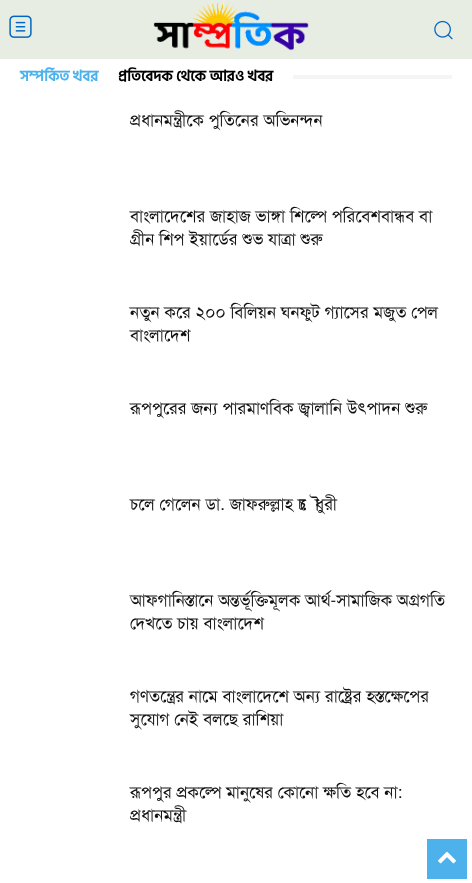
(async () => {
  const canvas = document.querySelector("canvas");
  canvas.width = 472;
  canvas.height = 883;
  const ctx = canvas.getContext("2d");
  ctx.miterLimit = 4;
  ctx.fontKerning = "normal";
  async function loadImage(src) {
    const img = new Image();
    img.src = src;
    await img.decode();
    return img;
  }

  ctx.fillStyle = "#ffffff";
  ctx.fillRect(0, 0, 472, 883);
  ctx.fillStyle = "#e7ede3";
  ctx.fillRect(0, 0, 472, 59);
  ctx.drawImage(await loadImage("img/1.png"), 9, 15, 23, 23);
  ctx.drawImage(await loadImage("img/2.png"), 153, 1, 156, 50);
  ctx.drawImage(await loadImage("img/3.png"), 434, 20, 19, 20);
  ctx.fillStyle = "#f5f5f5";
  ctx.fillRect(293, 75, 159, 4);
  ctx.fillStyle = "#4db2ec";
  ctx.fillRect(427, 839, 40, 40);
  ctx.drawImage(await loadImage("img/4.png"), 438, 851, 18, 13);
  ctx.font = "bold 15px Hind Siliguri";
  ctx.fillText("সম্পর্কিত খবর", 20, 81);
  ctx.fillStyle = "#000000";
  ctx.fillText("প্রতিবেদক থেকে আরও খবর", 118, 81);
  ctx.font = "17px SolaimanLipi";
  ctx.fillStyle = "#111111";
  for (const [text, x, y] of [
    ["প্রধানমন্ত্রীকে পুতিনের অভিনন্দন", 130, 126],
    ["বাংলাদেশের জাহাজ ভাঙ্গা শিল্পে পরিবেশবান্ধব বা", 130, 222],
    ["গ্রীন শিপ ইয়ার্ডের শুভ যাত্রা শুরু", 130, 245],
    ["নতুন করে ২০০ বিলিয়ন ঘনফুট গ্যাসের মজুত পেল", 130, 318],
    ["বাংলাদেশ", 130, 341],
    ["রূপপুরের জন্য পারমাণবিক জ্বালানি উৎপাদন শুরু", 130, 414],
    ["চলে গেলেন ডা. জাফরুল্লাহ চৌধুরী", 130, 510],
    ["আফগানিস্তানে অন্তর্ভূক্তিমূলক আর্থ-সামাজিক অগ্রগতি", 130, 606],
    ["দেখতে চায় বাংলাদেশ", 130, 629],
    ["গণতন্ত্রের নামে বাংলাদেশে অন্য রাষ্ট্রের হস্তক্ষেপের", 130, 702],
    ["সুযোগ নেই বলছে রাশিয়া", 130, 725],
    ["রূপপুর প্রকল্পে মানুষের কোনো ক্ষতি হবে না:", 130, 798],
    ["প্রধানমন্ত্রী", 130, 821],
  ]) {
    ctx.fillText(text, x, y);
  }
})();
